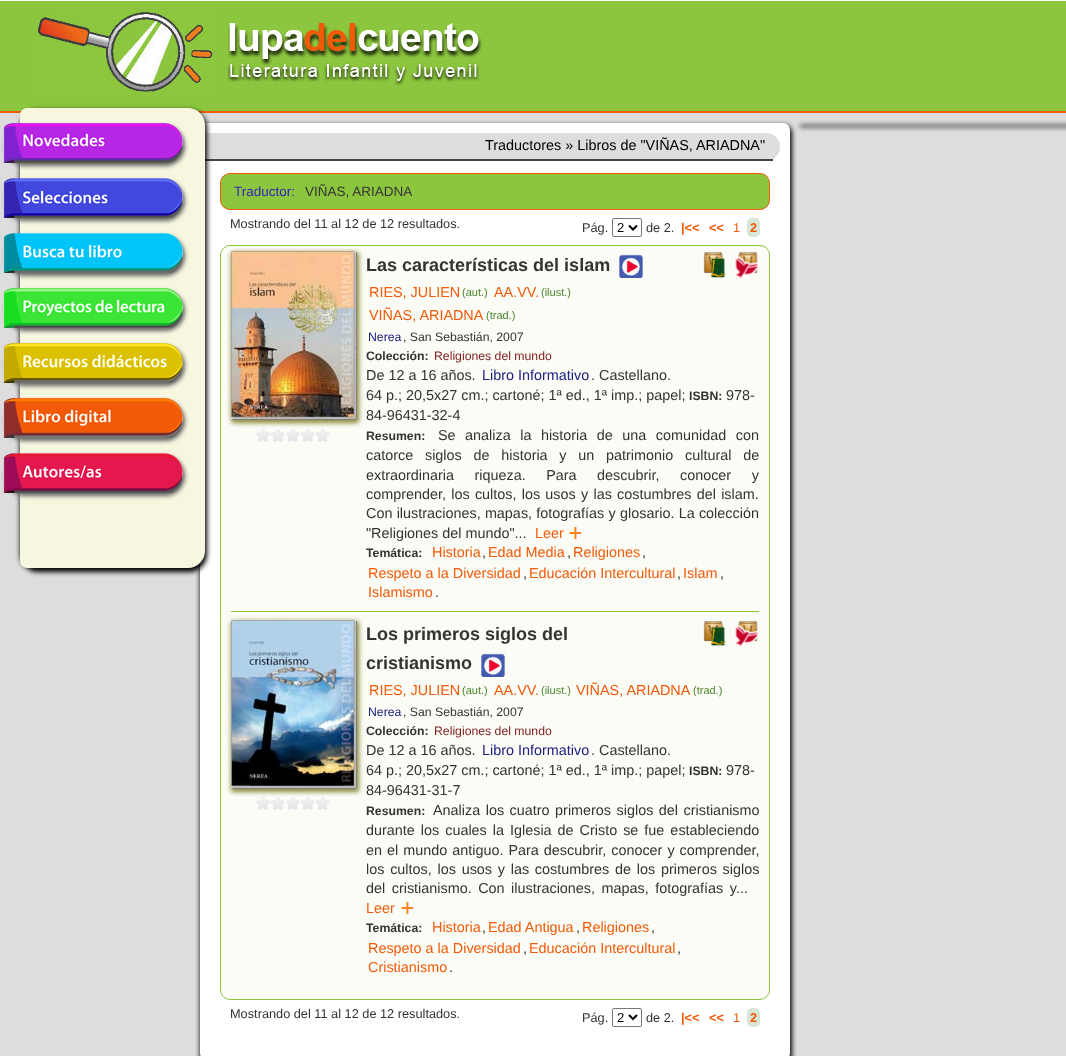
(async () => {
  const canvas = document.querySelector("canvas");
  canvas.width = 1066;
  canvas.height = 1056;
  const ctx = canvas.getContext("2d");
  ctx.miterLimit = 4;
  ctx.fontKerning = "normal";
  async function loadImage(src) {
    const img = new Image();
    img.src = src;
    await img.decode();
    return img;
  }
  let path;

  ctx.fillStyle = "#dddddd";
  ctx.fillRect(0, 0, 1066, 1056);
  for (const [x, y, w, h, color] of [
    [0, 1, 1066, 110, "#8cc63e"],
    [0, 0, 1066, 1, "#ffffff"],
    [0, 111, 1066, 2, "#f25a07"],
  ]) {
    ctx.fillStyle = color;
    ctx.fillRect(x, y, w, h);
  }
  ctx.drawImage(await loadImage("img/1.png"), 34, 11, 448, 82);
  ctx.fillStyle = "#000000";
  ctx.filter = "blur(2.5px)";
  ctx.beginPath();
  ctx.roundRect(200, 125, 592, 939, 8);
  ctx.fill();
  ctx.filter = "none";
  ctx.fillStyle = "#ffffff";
  ctx.beginPath();
  ctx.roundRect(200, 123, 590, 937, 7);
  ctx.fill();
  ctx.fillStyle = "#dddddd";
  ctx.beginPath();
  ctx.roundRect(200, 133, 580, 28, [0, 14, 14, 0]);
  ctx.fill();
  ctx.fillStyle = "#444444";
  ctx.fillRect(200, 159, 573, 2);
  ctx.fillStyle = "#000000";
  ctx.filter = "blur(2.5px)";
  ctx.beginPath();
  ctx.roundRect(20, 110, 187, 462, 18);
  ctx.fill();
  ctx.filter = "none";
  ctx.fillStyle = "#f7f7e0";
  ctx.beginPath();
  ctx.roundRect(20, 108, 185, 460, [7, 17, 17, 7]);
  ctx.fill();
  ctx.drawImage(await loadImage("img/2.png"), 3, 123, 180, 40);
  ctx.save();
  path = new Path2D("M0 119H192V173H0ZM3 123H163C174 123 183 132 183 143C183 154 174 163 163 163H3Z");
  ctx.clip(path, "evenodd");
  ctx.fillStyle = "#666666";
  ctx.filter = "blur(2px)";
  ctx.beginPath();
  ctx.roundRect(5, 126, 180, 40, 20);
  ctx.fill();
  ctx.filter = "none";
  ctx.restore();
  ctx.drawImage(await loadImage("img/3.png"), 3, 178, 180, 40);
  ctx.save();
  path = new Path2D("M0 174H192V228H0ZM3 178H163C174 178 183 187 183 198C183 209 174 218 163 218H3Z");
  ctx.clip(path, "evenodd");
  ctx.fillStyle = "#666666";
  ctx.filter = "blur(2px)";
  ctx.beginPath();
  ctx.roundRect(5, 181, 180, 40, 20);
  ctx.fill();
  ctx.filter = "none";
  ctx.restore();
  ctx.drawImage(await loadImage("img/4.png"), 3, 233, 180, 40);
  ctx.save();
  path = new Path2D("M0 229H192V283H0ZM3 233H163C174 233 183 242 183 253C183 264 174 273 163 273H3Z");
  ctx.clip(path, "evenodd");
  ctx.fillStyle = "#666666";
  ctx.filter = "blur(2px)";
  ctx.beginPath();
  ctx.roundRect(5, 236, 180, 40, 20);
  ctx.fill();
  ctx.filter = "none";
  ctx.restore();
  ctx.drawImage(await loadImage("img/5.png"), 3, 288, 180, 40);
  ctx.save();
  path = new Path2D("M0 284H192V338H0ZM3 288H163C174 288 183 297 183 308C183 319 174 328 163 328H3Z");
  ctx.clip(path, "evenodd");
  ctx.fillStyle = "#666666";
  ctx.filter = "blur(2px)";
  ctx.beginPath();
  ctx.roundRect(5, 291, 180, 40, 20);
  ctx.fill();
  ctx.filter = "none";
  ctx.restore();
  ctx.drawImage(await loadImage("img/6.png"), 3, 343, 180, 40);
  ctx.save();
  path = new Path2D("M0 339H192V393H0ZM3 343H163C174 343 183 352 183 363C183 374 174 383 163 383H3Z");
  ctx.clip(path, "evenodd");
  ctx.fillStyle = "#666666";
  ctx.filter = "blur(2px)";
  ctx.beginPath();
  ctx.roundRect(5, 346, 180, 40, 20);
  ctx.fill();
  ctx.filter = "none";
  ctx.restore();
  ctx.drawImage(await loadImage("img/7.png"), 3, 398, 180, 40);
  ctx.save();
  path = new Path2D("M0 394H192V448H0ZM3 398H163C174 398 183 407 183 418C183 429 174 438 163 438H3Z");
  ctx.clip(path, "evenodd");
  ctx.fillStyle = "#666666";
  ctx.filter = "blur(2px)";
  ctx.beginPath();
  ctx.roundRect(5, 401, 180, 40, 20);
  ctx.fill();
  ctx.filter = "none";
  ctx.restore();
  ctx.drawImage(await loadImage("img/8.png"), 3, 453, 180, 40);
  ctx.save();
  path = new Path2D("M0 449H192V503H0ZM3 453H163C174 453 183 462 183 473C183 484 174 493 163 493H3Z");
  ctx.clip(path, "evenodd");
  ctx.fillStyle = "#666666";
  ctx.filter = "blur(2px)";
  ctx.beginPath();
  ctx.roundRect(5, 456, 180, 40, 20);
  ctx.fill();
  ctx.filter = "none";
  ctx.restore();
  ctx.fillStyle = "#000000";
  ctx.filter = "blur(2.5px)";
  ctx.beginPath();
  ctx.rect(800, 125, 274, 2);
  ctx.fill();
  ctx.filter = "none";
  ctx.fillStyle = "#8cc63e";
  ctx.beginPath();
  ctx.roundRect(220.5, 173.5, 549, 36, 9.5);
  ctx.fill();
  ctx.strokeStyle = "#f25a07";
  ctx.stroke();
  ctx.beginPath();
  ctx.roundRect(612.5, 218.5, 29, 18, 1.5);
  ctx.strokeStyle = "#767676";
  ctx.stroke();
  path = new Path2D("M629 225.5L633 229.5L637 225.5");
  ctx.strokeStyle = "#000000";
  ctx.lineWidth = 2;
  ctx.stroke(path);
  ctx.fillStyle = "#d7e7d7";
  ctx.beginPath();
  ctx.roundRect(747, 218, 13, 19, 5);
  ctx.fill();
  ctx.fillStyle = "#fcfcf7";
  ctx.beginPath();
  ctx.roundRect(220.5, 245.5, 549, 754, 9.5);
  ctx.fill();
  ctx.strokeStyle = "#8cc63e";
  ctx.lineWidth = 1;
  ctx.stroke();
  ctx.fillStyle = "#8cc63e";
  ctx.fillRect(231, 611, 528, 1);
  ctx.drawImage(await loadImage("img/10.png"), 256, 428, 74, 15);
  ctx.fillStyle = "#888833";
  ctx.filter = "blur(2.5px)";
  ctx.beginPath();
  ctx.roundRect(231, 252, 128, 171, 3);
  ctx.fill();
  ctx.filter = "none";
  ctx.drawImage(await loadImage("img/9.png"), 231, 251, 125, 168);
  ctx.fillStyle = "#808080";
  ctx.fillRect(356, 252, 1, 167);
  ctx.fillRect(232, 419, 124, 1);
  ctx.drawImage(await loadImage("img/11.png"), 619, 254, 24, 24);
  ctx.drawImage(await loadImage("img/12.png"), 703, 251, 23, 27);
  ctx.drawImage(await loadImage("img/13.png"), 735, 251, 24, 28);
  ctx.drawImage(await loadImage("img/14.png"), 569, 527, 13, 12);
  ctx.drawImage(await loadImage("img/10.png"), 256, 796, 74, 15);
  ctx.fillStyle = "#888833";
  ctx.filter = "blur(2.5px)";
  ctx.beginPath();
  ctx.roundRect(231, 621, 128, 171, 3);
  ctx.fill();
  ctx.filter = "none";
  ctx.drawImage(await loadImage("img/15.png"), 231, 620, 125, 168);
  ctx.fillStyle = "#808080";
  ctx.fillRect(356, 621, 1, 167);
  ctx.fillRect(232, 788, 124, 1);
  ctx.drawImage(await loadImage("img/16.png"), 481, 653, 24, 24);
  ctx.drawImage(await loadImage("img/17.png"), 703, 620, 23, 26);
  ctx.drawImage(await loadImage("img/18.png"), 735, 620, 24, 27);
  ctx.drawImage(await loadImage("img/14.png"), 401, 902, 13, 12);
  ctx.beginPath();
  ctx.roundRect(612.5, 1008.5, 29, 18, 1.5);
  ctx.strokeStyle = "#767676";
  ctx.stroke();
  path = new Path2D("M629 1015L633 1019L637 1015");
  ctx.strokeStyle = "#000000";
  ctx.lineWidth = 2;
  ctx.stroke(path);
  ctx.fillStyle = "#d7e7d7";
  ctx.beginPath();
  ctx.roundRect(747, 1008, 13, 19, 5);
  ctx.fill();
  ctx.font = "14.4px Liberation Sans";
  ctx.fillStyle = "#000000";
  ctx.fillText("Traductores » Libros de \"VIÑAS, ARIADNA\"", 485, 150);
  ctx.font = "13.5px Liberation Sans";
  ctx.fillStyle = "#3324b2";
  ctx.fillText("Traductor:", 234, 196);
  ctx.fillStyle = "#333333";
  ctx.fillText("VIÑAS, ARIADNA", 305, 196);
  ctx.font = "12.75px Liberation Sans";
  ctx.fillText("Mostrando del 11 al 12 de 12 resultados.", 230, 228);
  ctx.fillText("Pág.", 582, 232);
  ctx.font = "13px Liberation Sans";
  ctx.fillStyle = "#000000";
  ctx.fillText("2", 617, 232);
  ctx.font = "12.75px Liberation Sans";
  ctx.fillStyle = "#333333";
  ctx.fillText("de 2.", 646, 232);
  ctx.font = "bold 12.75px Liberation Sans";
  ctx.fillStyle = "#f25a07";
  ctx.fillText("|<<", 681, 232);
  ctx.fillText("<<", 709, 232);
  ctx.font = "12.75px Liberation Sans";
  ctx.fillText("1", 733, 232);
  ctx.font = "bold 12.75px Liberation Sans";
  ctx.fillText("2", 750, 232);
  ctx.font = "bold 18px Liberation Sans";
  ctx.fillStyle = "#333333";
  ctx.fillText("Las características del islam", 366, 271);
  ctx.font = "14.4px Liberation Sans";
  ctx.fillStyle = "#f25a07";
  ctx.fillText("RIES, JULIEN", 369, 297);
  ctx.font = "11px Liberation Sans";
  ctx.fillStyle = "#4c862e";
  ctx.fillText("(aut.)", 462, 296);
  ctx.font = "14.4px Liberation Sans";
  ctx.fillStyle = "#f25a07";
  ctx.fillText("AA.VV.", 494, 297);
  ctx.font = "11px Liberation Sans";
  ctx.fillStyle = "#4c862e";
  ctx.fillText("(ilust.)", 541, 296);
  ctx.font = "14.4px Liberation Sans";
  ctx.fillStyle = "#f25a07";
  ctx.fillText("VIÑAS, ARIADNA", 369, 320);
  ctx.font = "11px Liberation Sans";
  ctx.fillStyle = "#4c862e";
  ctx.fillText("(trad.)", 486, 319);
  ctx.font = "12.25px Liberation Sans";
  ctx.fillStyle = "#202080";
  ctx.fillText("Nerea", 368, 341);
  ctx.fillStyle = "#333333";
  ctx.fillText(", San Sebastián, 2007", 403, 341);
  ctx.font = "bold 12.25px Liberation Sans";
  ctx.fillText("Colección:", 366, 360);
  ctx.font = "12.25px Liberation Sans";
  ctx.fillStyle = "#802020";
  ctx.fillText("Religiones del mundo", 434, 360);
  ctx.font = "14.4px Liberation Sans";
  ctx.fillStyle = "#333333";
  ctx.fillText("De 12 a 16 años.", 366, 380);
  ctx.fillStyle = "#202080";
  ctx.fillText("Libro Informativo", 482, 380);
  ctx.fillStyle = "#333333";
  ctx.fillText(". Castellano.", 591, 380);
  ctx.fillText("64 p.; 20,5x27 cm.; cartoné; 1ª ed., 1ª imp.; papel;", 366, 400);
  ctx.font = "bold 12.25px Liberation Sans";
  ctx.fillText("ISBN:", 689, 400);
  ctx.font = "14.4px Liberation Sans";
  ctx.fillText("978-", 726, 400);
  ctx.fillText("84-96431-32-4", 366, 420);
  ctx.font = "bold 12.25px Liberation Sans";
  ctx.fillText("Resumen:", 366, 440);
  ctx.wordSpacing = "5.5px";
  ctx.font = "14.4px Liberation Sans";
  ctx.fillText("Se analiza la historia de una comunidad con", 438, 440);
  ctx.wordSpacing = "7.75px";
  ctx.fillText("catorce siglos de historia y un patrimonio cultural de", 366, 460);
  ctx.wordSpacing = "16.5px";
  ctx.fillText("extraordinaria riqueza. Para descubrir, conocer y", 366, 480);
  ctx.wordSpacing = "1.25px";
  ctx.fillText("comprender, los cultos, los usos y las costumbres del islam.", 366, 499);
  ctx.wordSpacing = "0.25px";
  ctx.fillText("Con ilustraciones, mapas, fotografías y glosario. La colección", 366, 518);
  ctx.wordSpacing = "0px";
  ctx.fillText("\"Religiones del mundo\"...", 366, 538);
  ctx.fillStyle = "#f25a07";
  ctx.fillText("Leer", 535, 538);
  ctx.font = "bold 12.25px Liberation Sans";
  ctx.fillStyle = "#333333";
  ctx.fillText("Temática:", 366, 557);
  ctx.font = "14.4px Liberation Sans";
  ctx.fillStyle = "#f25a07";
  ctx.fillText("Historia", 432, 557);
  ctx.fillStyle = "#333333";
  ctx.fillText(",", 482, 557);
  ctx.fillStyle = "#f25a07";
  ctx.fillText("Edad Media", 488, 557);
  ctx.fillStyle = "#333333";
  ctx.fillText(",", 567, 557);
  ctx.fillStyle = "#f25a07";
  ctx.fillText("Religiones", 573, 557);
  ctx.fillStyle = "#333333";
  ctx.fillText(",", 642, 557);
  ctx.fillStyle = "#f25a07";
  ctx.fillText("Respeto a la Diversidad", 368, 578);
  ctx.fillStyle = "#333333";
  ctx.fillText(",", 523, 578);
  ctx.fillStyle = "#f25a07";
  ctx.fillText("Educación Intercultural", 529, 578);
  ctx.fillStyle = "#333333";
  ctx.fillText(",", 677, 578);
  ctx.fillStyle = "#f25a07";
  ctx.fillText("Islam", 683, 578);
  ctx.fillStyle = "#333333";
  ctx.fillText(",", 720, 578);
  ctx.fillStyle = "#f25a07";
  ctx.fillText("Islamismo", 368, 597);
  ctx.fillStyle = "#333333";
  ctx.fillText(".", 435, 597);
  ctx.font = "bold 18px Liberation Sans";
  ctx.fillText("Los primeros siglos del", 366, 640);
  ctx.fillText("cristianismo", 366, 669);
  ctx.font = "14.4px Liberation Sans";
  ctx.fillStyle = "#f25a07";
  ctx.fillText("RIES, JULIEN", 369, 695);
  ctx.font = "11px Liberation Sans";
  ctx.fillStyle = "#4c862e";
  ctx.fillText("(aut.)", 462, 694);
  ctx.font = "14.4px Liberation Sans";
  ctx.fillStyle = "#f25a07";
  ctx.fillText("AA.VV.", 494, 695);
  ctx.font = "11px Liberation Sans";
  ctx.fillStyle = "#4c862e";
  ctx.fillText("(ilust.)", 541, 694);
  ctx.font = "14.4px Liberation Sans";
  ctx.fillStyle = "#f25a07";
  ctx.fillText("VIÑAS, ARIADNA", 576, 695);
  ctx.font = "11px Liberation Sans";
  ctx.fillStyle = "#4c862e";
  ctx.fillText("(trad.)", 693, 694);
  ctx.font = "12.25px Liberation Sans";
  ctx.fillStyle = "#202080";
  ctx.fillText("Nerea", 368, 716);
  ctx.fillStyle = "#333333";
  ctx.fillText(", San Sebastián, 2007", 403, 716);
  ctx.font = "bold 12.25px Liberation Sans";
  ctx.fillText("Colección:", 366, 735);
  ctx.font = "12.25px Liberation Sans";
  ctx.fillStyle = "#802020";
  ctx.fillText("Religiones del mundo", 434, 735);
  ctx.font = "14.4px Liberation Sans";
  ctx.fillStyle = "#333333";
  ctx.fillText("De 12 a 16 años.", 366, 755);
  ctx.fillStyle = "#202080";
  ctx.fillText("Libro Informativo", 482, 755);
  ctx.fillStyle = "#333333";
  ctx.fillText(". Castellano.", 591, 755);
  ctx.fillText("64 p.; 20,5x27 cm.; cartoné; 1ª ed., 1ª imp.; papel;", 366, 775);
  ctx.font = "bold 12.25px Liberation Sans";
  ctx.fillText("ISBN:", 689, 775);
  ctx.font = "14.4px Liberation Sans";
  ctx.fillText("978-", 726, 775);
  ctx.fillText("84-96431-31-7", 366, 795);
  ctx.font = "bold 12.25px Liberation Sans";
  ctx.fillText("Resumen:", 366, 815);
  ctx.wordSpacing = "1.5px";
  ctx.font = "14.4px Liberation Sans";
  ctx.fillText("Analiza los cuatro primeros siglos del cristianismo", 433, 815);
  ctx.wordSpacing = "2px";
  ctx.fillText("durante los cuales la Iglesia de Cristo se fue estableciendo", 366, 835);
  ctx.wordSpacing = "1px";
  ctx.fillText("en el mundo antiguo. Para descubrir, conocer y comprender,", 366, 855);
  ctx.wordSpacing = "1.75px";
  ctx.fillText("los cultos, los usos y las costumbres de los primeros siglos", 366, 874);
  ctx.wordSpacing = "2.5px";
  ctx.fillText("del cristianismo. Con ilustraciones, mapas, fotografías y", 366, 893);
  ctx.wordSpacing = "0px";
  ctx.fillText("...", 736, 893);
  ctx.fillStyle = "#f25a07";
  ctx.fillText("Leer", 366, 913);
  ctx.font = "bold 12.25px Liberation Sans";
  ctx.fillStyle = "#333333";
  ctx.fillText("Temática:", 366, 932);
  ctx.font = "14.4px Liberation Sans";
  ctx.fillStyle = "#f25a07";
  ctx.fillText("Historia", 432, 932);
  ctx.fillStyle = "#333333";
  ctx.fillText(",", 482, 932);
  ctx.fillStyle = "#f25a07";
  ctx.fillText("Edad Antigua", 488, 932);
  ctx.fillStyle = "#333333";
  ctx.fillText(",", 576, 932);
  ctx.fillStyle = "#f25a07";
  ctx.fillText("Religiones", 582, 932);
  ctx.fillStyle = "#333333";
  ctx.fillText(",", 651, 932);
  ctx.fillStyle = "#f25a07";
  ctx.fillText("Respeto a la Diversidad", 368, 953);
  ctx.fillStyle = "#333333";
  ctx.fillText(",", 523, 953);
  ctx.fillStyle = "#f25a07";
  ctx.fillText("Educación Intercultural", 529, 953);
  ctx.fillStyle = "#333333";
  ctx.fillText(",", 677, 953);
  ctx.fillStyle = "#f25a07";
  ctx.fillText("Cristianismo", 368, 972);
  ctx.fillStyle = "#333333";
  ctx.fillText(".", 449, 972);
  ctx.font = "12.75px Liberation Sans";
  ctx.fillText("Mostrando del 11 al 12 de 12 resultados.", 230, 1018);
  ctx.fillText("Pág.", 582, 1022);
  ctx.font = "13px Liberation Sans";
  ctx.fillStyle = "#000000";
  ctx.fillText("2", 617, 1022);
  ctx.font = "12.75px Liberation Sans";
  ctx.fillStyle = "#333333";
  ctx.fillText("de 2.", 646, 1022);
  ctx.font = "bold 12.75px Liberation Sans";
  ctx.fillStyle = "#f25a07";
  ctx.fillText("|<<", 681, 1022);
  ctx.fillText("<<", 709, 1022);
  ctx.font = "12.75px Liberation Sans";
  ctx.fillText("1", 733, 1022);
  ctx.font = "bold 12.75px Liberation Sans";
  ctx.fillText("2", 750, 1022);
})();
